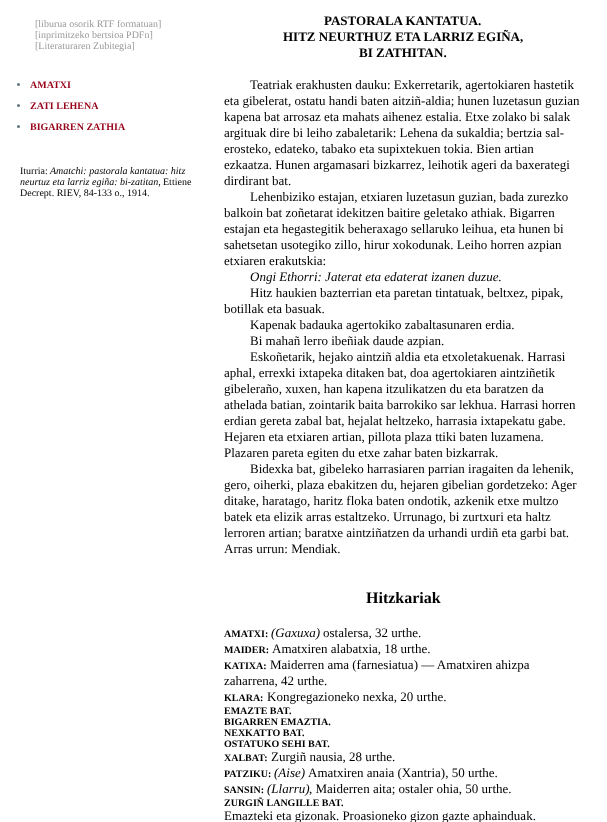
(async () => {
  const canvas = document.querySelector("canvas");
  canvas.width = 607;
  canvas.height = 822;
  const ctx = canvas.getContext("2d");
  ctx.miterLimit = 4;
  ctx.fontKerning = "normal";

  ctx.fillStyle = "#ffffff";
  ctx.fillRect(0, 0, 607, 822);
  ctx.fillStyle = "#5e7580";
  ctx.beginPath();
  ctx.arc(18.5, 84.5, 1.5, 0, Math.PI * 2);
  ctx.fill();
  ctx.beginPath();
  ctx.arc(18.5, 105.5, 1.5, 0, Math.PI * 2);
  ctx.fill();
  ctx.beginPath();
  ctx.arc(18.5, 126.5, 1.5, 0, Math.PI * 2);
  ctx.fill();
  ctx.font = "10px Liberation Serif";
  ctx.fillStyle = "#999999";
  for (const [text, x, y] of [
    ["[liburua osorik RTF formatuan]", 35, 27],
    ["[inprimitzeko bertsioa PDFn]", 35, 38],
    ["[Literaturaren Zubitegia]", 35, 49],
  ]) {
    ctx.fillText(text, x, y);
  }
  ctx.font = "bold 10px Liberation Serif";
  ctx.fillStyle = "#980319";
  for (const [text, x, y] of [
    ["AMATXI", 30, 88],
    ["ZATI LEHENA", 30, 109],
    ["BIGARREN ZATHIA", 30, 130],
  ]) {
    ctx.fillText(text, x, y);
  }
  ctx.font = "10px Liberation Serif";
  ctx.fillStyle = "#000000";
  ctx.fillText("Iturria:", 20, 174);
  ctx.font = "italic 10px Liberation Serif";
  ctx.fillText("Amatchi: pastorala kantatua: hitz", 50, 174);
  ctx.fillText("neurtuz eta larriz egiña: bi-zatitan,", 20, 185);
  ctx.font = "10px Liberation Serif";
  ctx.fillText("Ettiene", 163, 185);
  ctx.fillText("Decrept. RIEV, 84-133 o., 1914.", 20, 196);
  ctx.font = "bold 13px Liberation Serif";
  for (const [text, x, y] of [
    ["PASTORALA KANTATUA.", 324, 25],
    ["HITZ NEURTHUZ ETA LARRIZ EGIÑA,", 283, 41],
    ["BI ZATHITAN.", 359, 57],
  ]) {
    ctx.fillText(text, x, y);
  }
  ctx.font = "13px Liberation Serif";
  for (const [text, x, y] of [
    ["Teatriak erakhusten dauku: Exkerretarik, agertokiaren hastetik", 250, 89],
    ["eta gibelerat, ostatu handi baten aitziñ-aldia; hunen luzetasun guzian", 224, 105],
    ["kapena bat arrosaz eta mahats aihenez estalia. Etxe zolako bi salak", 224, 121],
    ["argituak dire bi leiho zabaletarik: Lehena da sukaldia; bertzia sal-", 224, 137],
    ["erosteko, edateko, tabako eta supixtekuen tokia. Bien artian", 224, 153],
    ["ezkaatza. Hunen argamasari bizkarrez, leihotik ageri da baxerategi", 224, 169],
    ["dirdirant bat.", 224, 185],
    ["Lehenbiziko estajan, etxiaren luzetasun guzian, bada zurezko", 250, 201],
    ["balkoin bat zoñetarat idekitzen baitire geletako athiak. Bigarren", 224, 217],
    ["estajan eta hegastegitik beheraxago sellaruko leihua, eta hunen bi", 224, 233],
    ["sahetsetan usotegiko zillo, hirur xokodunak. Leiho horren azpian", 224, 249],
    ["etxiaren erakutskia:", 224, 265],
  ]) {
    ctx.fillText(text, x, y);
  }
  ctx.font = "italic 13px Liberation Serif";
  ctx.fillText("Ongi Ethorri: Jaterat eta edaterat izanen duzue.", 250, 281);
  ctx.font = "13px Liberation Serif";
  for (const [text, x, y] of [
    ["Hitz haukien bazterrian eta paretan tintatuak, beltxez, pipak,", 250, 297],
    ["botillak eta basuak.", 224, 313],
    ["Kapenak badauka agertokiko zabaltasunaren erdia.", 250, 329],
    ["Bi mahañ lerro ibeñiak daude azpian.", 250, 345],
    ["Eskoñetarik, hejako aintziñ aldia eta etxoletakuenak. Harrasi", 250, 361],
    ["aphal, errexki ixtapeka ditaken bat, doa agertokiaren aintziñetik", 224, 377],
    ["gibeleraño, xuxen, han kapena itzulikatzen du eta baratzen da", 224, 393],
    ["athelada batian, zointarik baita barrokiko sar lekhua. Harrasi horren", 224, 409],
    ["erdian gereta zabal bat, hejalat heltzeko, harrasia ixtapekatu gabe.", 224, 425],
    ["Hejaren eta etxiaren artian, pillota plaza ttiki baten luzamena.", 224, 441],
    ["Plazaren pareta egiten du etxe zahar baten bizkarrak.", 224, 457],
    ["Bidexka bat, gibeleko harrasiaren parrian iragaiten da lehenik,", 250, 473],
    ["gero, oiherki, plaza ebakitzen du, hejaren gibelian gordetzeko: Ager", 224, 489],
    ["ditake, haratago, haritz floka baten ondotik, azkenik etxe multzo", 224, 505],
    ["batek eta elizik arras estaltzeko. Urrunago, bi zurtxuri eta haltz", 224, 521],
    ["lerroren artian; baratxe aintziñatzen da urhandi urdiñ eta garbi bat.", 224, 537],
    ["Arras urrun: Mendiak.", 224, 553],
  ]) {
    ctx.fillText(text, x, y);
  }
  ctx.font = "bold 16px Liberation Serif";
  ctx.fillText("Hitzkariak", 366, 603);
  ctx.font = "bold 10px Liberation Serif";
  ctx.fillText("AMATXI:", 224, 637);
  ctx.font = "italic 13px Liberation Serif";
  ctx.fillText("(Gaxuxa)", 271, 637);
  ctx.font = "13px Liberation Serif";
  ctx.fillText("ostalersa, 32 urthe.", 323, 637);
  ctx.font = "bold 10px Liberation Serif";
  ctx.fillText("MAIDER:", 224, 653);
  ctx.font = "13px Liberation Serif";
  ctx.fillText("Amatxiren alabatxia, 18 urthe.", 272, 653);
  ctx.font = "bold 10px Liberation Serif";
  ctx.fillText("KATIXA:", 224, 669);
  ctx.font = "13px Liberation Serif";
  ctx.fillText("Maiderren ama (farnesiatua) — Amatxiren ahizpa", 270, 669);
  ctx.fillText("zaharrena, 42 urthe.", 224, 685);
  ctx.font = "bold 10px Liberation Serif";
  ctx.fillText("KLARA:", 224, 701);
  ctx.font = "13px Liberation Serif";
  ctx.fillText("Kongregazioneko nexka, 20 urthe.", 267, 701);
  ctx.font = "bold 10px Liberation Serif";
  for (const [text, x, y] of [
    ["EMAZTE BAT.", 224, 714],
    ["BIGARREN EMAZTIA.", 224, 725],
    ["NEXKATTO BAT.", 224, 736],
    ["OSTATUKO SEHI BAT.", 224, 747],
    ["XALBAT:", 224, 761],
  ]) {
    ctx.fillText(text, x, y);
  }
  ctx.font = "13px Liberation Serif";
  ctx.fillText("Zurgiñ nausia, 28 urthe.", 271, 761);
  ctx.font = "bold 10px Liberation Serif";
  ctx.fillText("PATZIKU:", 224, 777);
  ctx.font = "italic 13px Liberation Serif";
  ctx.fillText("(Aise)", 274, 777);
  ctx.font = "13px Liberation Serif";
  ctx.fillText("Amatxiren anaia (Xantria), 50 urthe.", 308, 777);
  ctx.font = "bold 10px Liberation Serif";
  ctx.fillText("SANSIN:", 224, 793);
  ctx.font = "italic 13px Liberation Serif";
  ctx.fillText("(Llarru)", 267, 793);
  ctx.font = "13px Liberation Serif";
  ctx.fillText(", Maiderren aita; ostaler ohia, 50 urthe.", 309, 793);
  ctx.font = "bold 10px Liberation Serif";
  ctx.fillText("ZURGIÑ LANGILLE BAT.", 224, 806);
  ctx.font = "13px Liberation Serif";
  ctx.fillText("Emazteki eta gizonak. Proasioneko gizon gazte aphainduak.", 224, 820);
})();
